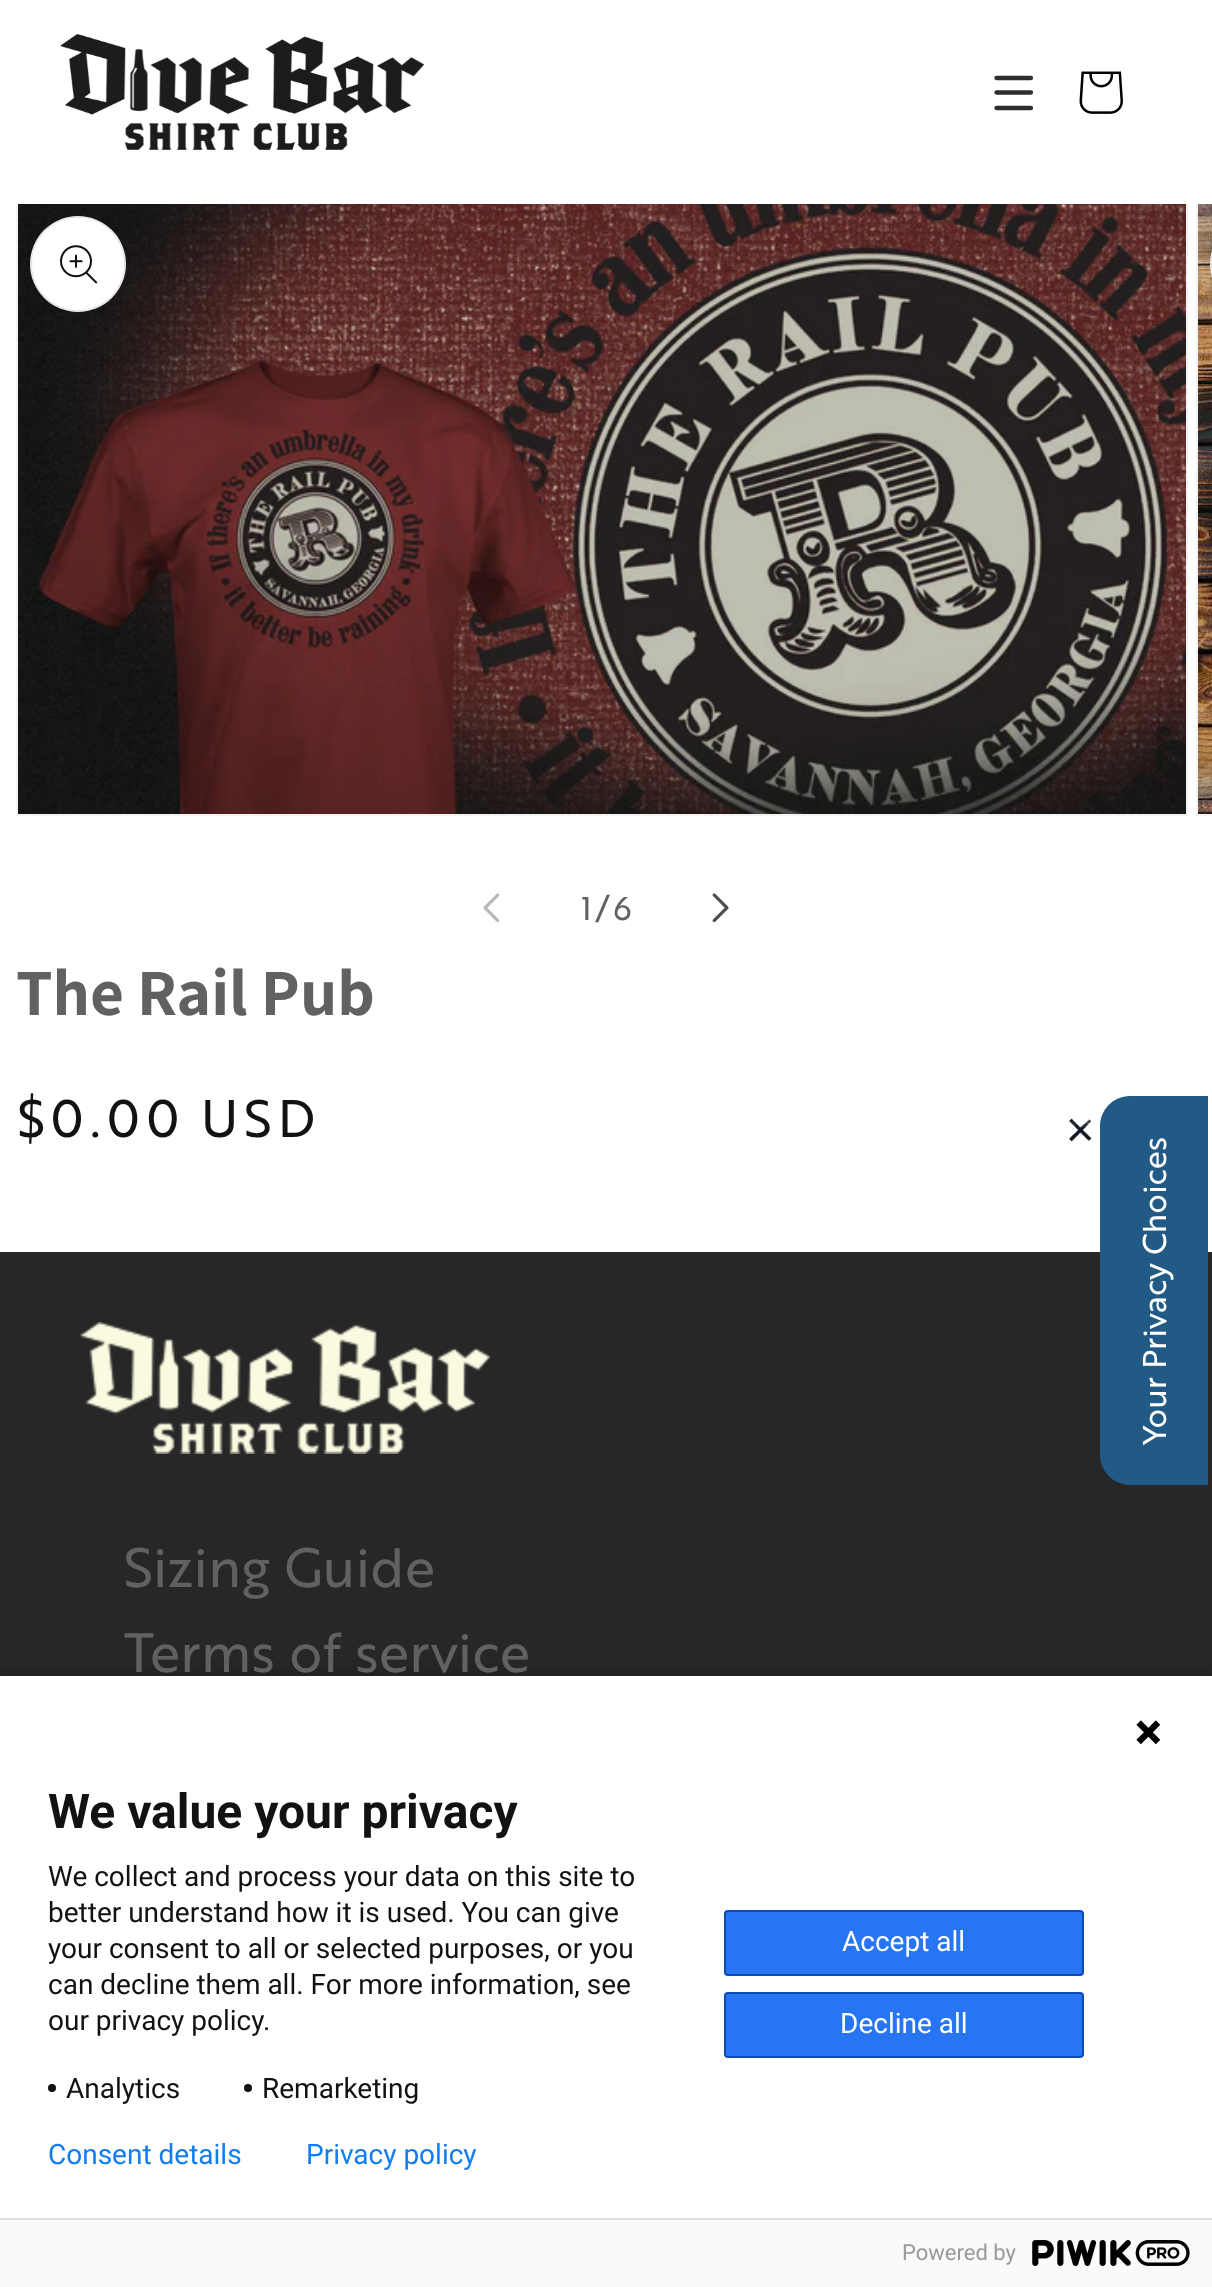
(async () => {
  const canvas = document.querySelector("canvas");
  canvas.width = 1212;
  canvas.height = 2287;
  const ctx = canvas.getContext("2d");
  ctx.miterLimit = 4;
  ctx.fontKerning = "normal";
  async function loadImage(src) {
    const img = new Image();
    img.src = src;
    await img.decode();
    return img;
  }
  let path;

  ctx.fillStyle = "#ffffff";
  ctx.fillRect(0, 0, 1212, 2287);
  ctx.drawImage(await loadImage("img/1.png"), 60, 34, 364, 116);
  path = new Path2D("M996.5 78H1031M996.5 92.5H1031M996.5 108H1031");
  ctx.strokeStyle = "#2e2e2e";
  ctx.lineWidth = 4.3;
  ctx.lineCap = "round";
  ctx.stroke(path);
  ctx.drawImage(await loadImage("img/2.png"), 1079, 71, 44, 43);
  ctx.strokeStyle = "#f3f3f3";
  ctx.lineWidth = 2;
  ctx.strokeRect(17, 201, 1170, 614);
  ctx.strokeRect(1197, 201, 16, 614);
  ctx.fillRect(16, 200, 1196, 4);
  ctx.drawImage(await loadImage("img/3.png"), 18, 204, 1168, 610);
  ctx.beginPath();
  ctx.arc(78, 264, 48, 0, Math.PI * 2);
  ctx.fill();
  ctx.beginPath();
  ctx.arc(78, 264, 47, 0, Math.PI * 2);
  ctx.strokeStyle = "rgba(18, 18, 18, 0.1)";
  ctx.stroke();
  ctx.drawImage(await loadImage("img/4.png"), 60, 245, 38, 39);
  ctx.drawImage(await loadImage("img/5.png"), 1198, 204, 14, 610);
  path = new Path2D("M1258 216H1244V312H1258C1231.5 312 1210 290.5 1210 264C1210 237.5 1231.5 216 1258 216Z");
  ctx.fill(path);
  ctx.beginPath();
  ctx.roundRect(1211, 217, 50, 94, 47);
  ctx.stroke();
  ctx.drawImage(await loadImage("img/6.png"), 483, 893, 17, 30);
  ctx.drawImage(await loadImage("img/7.png"), 712, 893, 17, 30);
  ctx.drawImage(await loadImage("img/8.png"), 1068, 1118, 24, 24);
  ctx.fillStyle = "#282728";
  ctx.fillRect(0, 1252, 1212, 424);
  ctx.fillStyle = "#215a85";
  path = new Path2D("M1100 1455V1126C1100 1110 1113 1096 1130 1096H1208V1485H1130C1113 1485 1100 1471 1100 1455Z");
  ctx.fill(path);
  ctx.drawImage(await loadImage("img/9.png"), 80, 1322, 410, 132);
  ctx.fillStyle = "rgba(0, 0, 0, 0.14)";
  ctx.filter = "blur(5px)";
  ctx.beginPath();
  ctx.rect(-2, 1670, 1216, 616);
  ctx.fill();
  ctx.filter = "none";
  ctx.fillStyle = "#ffffff";
  ctx.fillRect(0, 1676, 1212, 542);
  ctx.drawImage(await loadImage("img/10.png"), 1136, 1720, 25, 25);
  ctx.fillStyle = "#131313";
  ctx.beginPath();
  ctx.arc(52, 2088, 4, 0, Math.PI * 2);
  ctx.fill();
  ctx.beginPath();
  ctx.arc(248, 2088, 4, 0, Math.PI * 2);
  ctx.fill();
  ctx.fillStyle = "#2775f2";
  ctx.beginPath();
  ctx.roundRect(725, 1911, 358, 64, 3);
  ctx.fill();
  ctx.strokeStyle = "#0b4bb3";
  ctx.stroke();
  ctx.beginPath();
  ctx.roundRect(725, 1993, 358, 64, 3);
  ctx.fill();
  ctx.stroke();
  ctx.fillStyle = "#fafafa";
  ctx.fillRect(0, 2220, 1212, 67);
  ctx.fillStyle = "#dddddd";
  ctx.fillRect(0, 2218, 1212, 2);
  ctx.drawImage(await loadImage("img/11.png"), 1032, 2240, 158, 26);
  ctx.letterSpacing = "2px";
  ctx.font = "32px 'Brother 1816'";
  ctx.fillStyle = "#626162";
  ctx.fillText("1/6", 581, 920);
  ctx.letterSpacing = "0px";
  ctx.font = "bold 66px Assistant";
  ctx.fillText("The Rail Pub", 16, 1015);
  ctx.letterSpacing = "4.25px";
  ctx.font = "51.25px 'Brother 1816'";
  ctx.fillStyle = "#121212";
  ctx.fillText("$0.00 USD", 16, 1137);
  ctx.letterSpacing = "0px";
  ctx.font = "32px 'Brother 1816'";
  ctx.fillStyle = "#ffffff";
  ctx.save();
  ctx.translate(1166, 1445);
  ctx.rotate(-90 * Math.PI / 180);
  ctx.fillText("Your Privacy Choices", 0, 0);
  ctx.restore();
  ctx.font = "54px 'Brother 1816'";
  ctx.fillStyle = "#626162";
  ctx.fillText("Sizing Guide", 124, 1587);
  ctx.fillText("Terms of service", 124, 1672);
  ctx.font = "bold 48px Roboto";
  ctx.fillStyle = "#121212";
  ctx.fillText("We value your privacy", 48, 1828);
  ctx.font = "28px Roboto";
  for (const [text, x, y] of [
    ["We collect and process your data on this site to", 48, 1886],
    ["better understand how it is used. You can give", 48, 1922],
    ["your consent to all or selected purposes, or you", 48, 1958],
    ["can decline them all. For more information, see", 48, 1994],
    ["our privacy policy.", 48, 2030],
    ["Analytics", 66, 2098],
    ["Remarketing", 262, 2098],
  ]) {
    ctx.fillText(text, x, y);
  }
  ctx.fillStyle = "#ffffff";
  ctx.fillText("Accept all", 842, 1951);
  ctx.fillText("Decline all", 840, 2033);
  ctx.fillStyle = "#107ef1";
  ctx.fillText("Consent details", 48, 2164);
  ctx.fillText("Privacy policy", 306, 2164);
  ctx.font = "22px Roboto";
  ctx.fillStyle = "#999999";
  ctx.fillText("Powered by", 902, 2260);
})();
